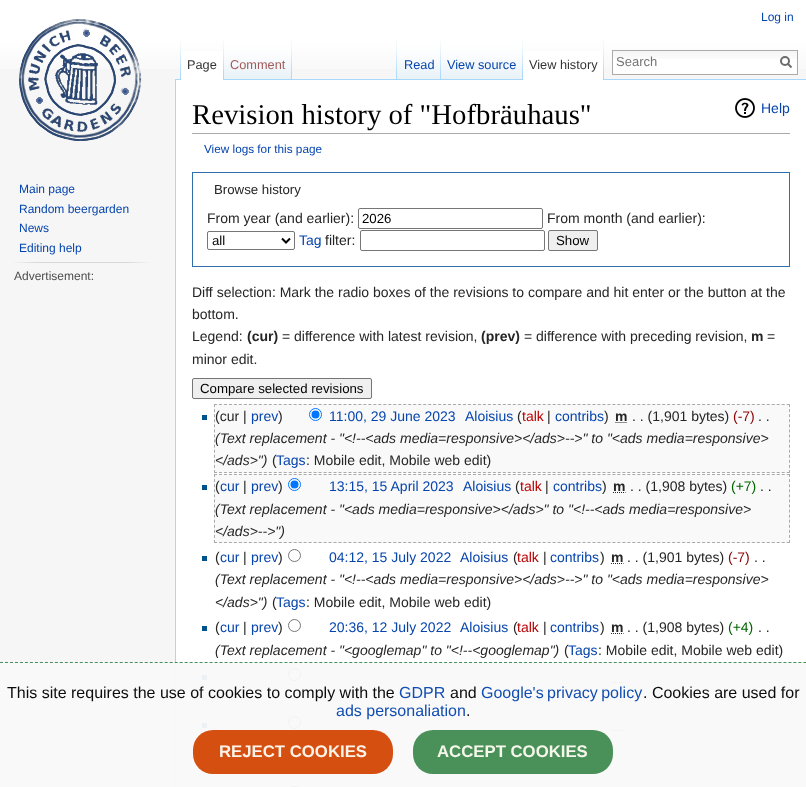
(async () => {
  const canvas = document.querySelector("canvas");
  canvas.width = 806;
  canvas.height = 787;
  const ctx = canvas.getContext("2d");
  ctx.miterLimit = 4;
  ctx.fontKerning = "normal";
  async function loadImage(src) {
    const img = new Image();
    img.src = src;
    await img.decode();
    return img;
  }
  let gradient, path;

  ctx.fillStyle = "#f6f6f6";
  ctx.fillRect(0, 0, 806, 787);
  ctx.fillStyle = "#f9f9f9";
  ctx.fillRect(0, 662, 175, 125);
  gradient = ctx.createLinearGradient(403, 0, 403, 80);
  gradient.addColorStop(0.5, "#ffffff");
  gradient.addColorStop(1, "#f6f6f6");
  ctx.fillStyle = gradient;
  ctx.fillRect(0, 0, 806, 69);
  ctx.drawImage(await loadImage("img/1.png"), 180, 40, 1, 39);
  ctx.fillStyle = "#a7d7f9";
  ctx.fillRect(175, 79, 631, 1);
  ctx.fillStyle = "#ffffff";
  ctx.fillRect(181, 51, 42, 29);
  ctx.drawImage(await loadImage("img/2.png"), 223, 40, 1, 40);
  ctx.drawImage(await loadImage("img/3.png"), 224, 40, 68, 40);
  ctx.drawImage(await loadImage("img/4.png"), 291, 40, 1, 39);
  ctx.drawImage(await loadImage("img/1.png"), 396, 40, 1, 39);
  ctx.drawImage(await loadImage("img/5.png"), 397, 40, 44, 40);
  ctx.drawImage(await loadImage("img/4.png"), 440, 40, 1, 39);
  ctx.drawImage(await loadImage("img/6.png"), 441, 40, 82, 40);
  ctx.drawImage(await loadImage("img/4.png"), 522, 40, 1, 39);
  ctx.fillRect(523, 51, 80, 29);
  ctx.drawImage(await loadImage("img/2.png"), 603, 40, 1, 40);
  ctx.fillRect(613, 59, 184, 15);
  ctx.drawImage(await loadImage("img/7.png"), 613, 51, 184, 8);
  ctx.strokeStyle = "#aaaaaa";
  ctx.strokeRect(612.5, 50.5, 185, 24);
  path = new Path2D("M791.5 67.5L787.5 63.5");
  ctx.strokeStyle = "#6c6c6c";
  ctx.lineWidth = 2;
  ctx.stroke(path);
  ctx.beginPath();
  ctx.arc(785, 61, 4, 0, Math.PI * 2);
  ctx.stroke();
  ctx.drawImage(await loadImage("img/8.png"), 19, 19, 123, 122);
  ctx.drawImage(await loadImage("img/9.png"), 14, 262, 135, 1);
  for (const [x, y, w, h, color] of [
    [176, 80, 630, 582, "#ffffff"],
    [176, 662, 630, 125, "#f9f9f9"],
    [175, 79, 1, 583, "#a7d7f9"],
    [175, 662, 1, 125, "#f5f7f9"],
    [192, 133, 598, 1, "#aaaaaa"],
  ]) {
    ctx.fillStyle = color;
    ctx.fillRect(x, y, w, h);
  }
  ctx.drawImage(await loadImage("img/10.png"), 735, 98, 20, 20);
  ctx.strokeStyle = "#2f6fab";
  ctx.lineWidth = 1;
  ctx.strokeRect(192.5, 172.5, 597, 94);
  ctx.beginPath();
  ctx.roundRect(358.5, 208.5, 184, 20, 1.5);
  ctx.strokeStyle = "#767676";
  ctx.stroke();
  ctx.beginPath();
  ctx.roundRect(207.5, 231.5, 87, 18, 1.5);
  ctx.stroke();
  path = new Path2D("M282 238.5L286 242.5L290 238.5");
  ctx.strokeStyle = "#000000";
  ctx.lineWidth = 2;
  ctx.stroke(path);
  ctx.beginPath();
  ctx.roundRect(360.5, 230.5, 184, 20, 1.5);
  ctx.strokeStyle = "#767676";
  ctx.lineWidth = 1;
  ctx.stroke();
  ctx.fillStyle = "#efefef";
  ctx.beginPath();
  ctx.roundRect(548.5, 230.5, 49, 20, 1.5);
  ctx.fill();
  ctx.stroke();
  ctx.beginPath();
  ctx.roundRect(192.5, 378.5, 179, 20, 1.5);
  ctx.fill();
  ctx.stroke();
  ctx.fillStyle = "#f9f9f9";
  ctx.fillRect(214, 404, 576, 69);
  path = new Path2D("M214 404.5H790");
  ctx.strokeStyle = "#aaaaaa";
  ctx.setLineDash([3, 1.98]);
  ctx.stroke(path);
  path = new Path2D("M789.5 404V473");
  ctx.setLineDash([3, 2.08]);
  ctx.stroke(path);
  path = new Path2D("M214 472.5H790");
  ctx.setLineDash([3, 1.98]);
  ctx.stroke(path);
  path = new Path2D("M214.5 404V473");
  ctx.setLineDash([3, 2.08]);
  ctx.stroke(path);
  ctx.fillStyle = "#00528c";
  ctx.fillRect(202, 415, 5, 5);
  ctx.fillStyle = "#ffffff";
  ctx.beginPath();
  ctx.arc(315.5, 414.5, 6, 0, Math.PI * 2);
  ctx.fill();
  ctx.strokeStyle = "#0075ff";
  ctx.setLineDash([]);
  ctx.stroke();
  ctx.fillStyle = "#0075ff";
  ctx.beginPath();
  ctx.arc(315.5, 414.5, 4, 0, Math.PI * 2);
  ctx.fill();
  path = new Path2D("M615.5 422.5H627.5");
  ctx.strokeStyle = "#252525";
  ctx.setLineDash([1, 1]);
  ctx.stroke(path);
  ctx.fillStyle = "#f9f9f9";
  ctx.fillRect(214, 474, 576, 69);
  path = new Path2D("M214 474.5H790");
  ctx.strokeStyle = "#aaaaaa";
  ctx.setLineDash([3, 1.98]);
  ctx.stroke(path);
  path = new Path2D("M789.5 474V543");
  ctx.setLineDash([3, 2.08]);
  ctx.stroke(path);
  path = new Path2D("M214 542.5H790");
  ctx.setLineDash([3, 1.98]);
  ctx.stroke(path);
  path = new Path2D("M214.5 474V543");
  ctx.setLineDash([3, 2.08]);
  ctx.stroke(path);
  ctx.fillStyle = "#00528c";
  ctx.fillRect(202, 485, 5, 5);
  ctx.fillStyle = "#ffffff";
  ctx.beginPath();
  ctx.arc(294.5, 484.5, 6, 0, Math.PI * 2);
  ctx.fill();
  ctx.strokeStyle = "#0075ff";
  ctx.setLineDash([]);
  ctx.stroke();
  ctx.fillStyle = "#0075ff";
  ctx.beginPath();
  ctx.arc(294.5, 484.5, 4, 0, Math.PI * 2);
  ctx.fill();
  path = new Path2D("M613 492.5H625.5");
  ctx.strokeStyle = "#252525";
  ctx.setLineDash([1, 1]);
  ctx.stroke(path);
  ctx.fillStyle = "#00528c";
  ctx.fillRect(202, 556, 5, 5);
  ctx.beginPath();
  ctx.arc(294.5, 555.5, 6, 0, Math.PI * 2);
  ctx.strokeStyle = "#767676";
  ctx.setLineDash([]);
  ctx.stroke();
  path = new Path2D("M611 563.5H623.5");
  ctx.strokeStyle = "#252525";
  ctx.setLineDash([1, 1]);
  ctx.stroke(path);
  ctx.fillRect(202, 626, 5, 5);
  ctx.beginPath();
  ctx.arc(294.5, 625.5, 6, 0, Math.PI * 2);
  ctx.strokeStyle = "#767676";
  ctx.setLineDash([]);
  ctx.stroke();
  path = new Path2D("M611 633.5H623.5");
  ctx.strokeStyle = "#252525";
  ctx.setLineDash([1, 1]);
  ctx.stroke(path);
  ctx.fillStyle = "#edf1f4";
  ctx.fillRect(202, 675, 5, 5);
  ctx.beginPath();
  ctx.arc(294.5, 674.5, 6, 0, Math.PI * 2);
  ctx.strokeStyle = "#f2f2f2";
  ctx.setLineDash([]);
  ctx.stroke();
  path = new Path2D("M611 682.5H623.5");
  ctx.strokeStyle = "#eeeeee";
  ctx.setLineDash([1, 1]);
  ctx.stroke(path);
  ctx.fillRect(202, 723, 5, 5);
  ctx.beginPath();
  ctx.arc(294.5, 722.5, 6, 0, Math.PI * 2);
  ctx.strokeStyle = "#f2f2f2";
  ctx.setLineDash([]);
  ctx.stroke();
  path = new Path2D("M612.5 730.5H625");
  ctx.strokeStyle = "#eeeeee";
  ctx.setLineDash([1, 1]);
  ctx.stroke(path);
  ctx.beginPath();
  ctx.roundRect(288.5, 786.5, 12, 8, 6);
  ctx.strokeStyle = "#f2f2f2";
  ctx.setLineDash([]);
  ctx.stroke();
  path = new Path2D("M0 662.5H806");
  ctx.strokeStyle = "rgba(63, 138, 80, 0.95)";
  ctx.setLineDash([3, 1.99]);
  ctx.stroke(path);
  ctx.fillStyle = "rgba(211, 70, 3, 0.95)";
  ctx.beginPath();
  ctx.roundRect(193, 730, 200, 44, 20);
  ctx.fill();
  ctx.fillStyle = "rgba(63, 138, 80, 0.95)";
  ctx.beginPath();
  ctx.roundRect(413, 730, 200, 44, 20);
  ctx.fill();
  ctx.font = "12px Liberation Sans";
  ctx.fillStyle = "#0645ad";
  ctx.fillText("Log in", 761, 21);
  ctx.font = "12.75px Liberation Sans";
  ctx.fillStyle = "#333333";
  ctx.fillText("Page", 187, 69);
  ctx.fillStyle = "#a55858";
  ctx.fillText("Comment", 230, 69);
  ctx.fillStyle = "#0645ad";
  ctx.fillText("Read", 404, 69);
  ctx.fillText("View source", 447, 69);
  ctx.fillStyle = "#333333";
  ctx.fillText("View history", 529, 69);
  ctx.font = "13px Liberation Sans";
  ctx.fillStyle = "#757575";
  ctx.fillText("Search", 616, 66);
  ctx.font = "12px Liberation Sans";
  ctx.fillStyle = "#0645ad";
  for (const [text, x, y] of [
    ["Main page", 19, 193],
    ["Random beergarden", 19, 213],
    ["News", 19, 232],
    ["Editing help", 19, 252],
  ]) {
    ctx.fillText(text, x, y);
  }
  ctx.fillStyle = "#4d4d4d";
  ctx.fillText("Advertisement:", 14, 280);
  ctx.font = "28.75px Liberation Serif";
  ctx.fillStyle = "#000000";
  ctx.fillText("Revision history of \"Hofbräuhaus\"", 192, 124);
  ctx.font = "14px Liberation Sans";
  ctx.fillStyle = "#0645ad";
  ctx.fillText("Help", 761, 113);
  ctx.font = "11.75px Liberation Sans";
  ctx.fillText("View logs for this page", 204, 153);
  ctx.font = "13.25px Liberation Sans";
  ctx.fillStyle = "#252525";
  ctx.fillText("Browse history", 214, 194);
  ctx.font = "14px Liberation Sans";
  ctx.fillText("From year (and earlier):", 207, 223);
  ctx.font = "13.25px Liberation Sans";
  ctx.fillStyle = "#000000";
  ctx.fillText("2026", 362, 223);
  ctx.font = "14px Liberation Sans";
  ctx.fillStyle = "#252525";
  ctx.fillText("From month (and earlier):", 547, 223);
  ctx.font = "13.25px Liberation Sans";
  ctx.fillStyle = "#000000";
  ctx.fillText("all", 212, 245);
  ctx.font = "14px Liberation Sans";
  ctx.fillStyle = "#0645ad";
  ctx.fillText("Tag", 299, 245);
  ctx.fillStyle = "#252525";
  ctx.fillText("filter:", 325, 245);
  ctx.font = "13.25px Liberation Sans";
  ctx.fillStyle = "#000000";
  ctx.fillText("Show", 556, 245);
  ctx.font = "14px Liberation Sans";
  ctx.fillStyle = "#252525";
  for (const [text, x, y] of [
    ["Diff selection: Mark the radio boxes of the revisions to compare and hit enter or the button at the", 192, 297],
    ["bottom.", 192, 319],
    ["Legend:", 192, 341],
  ]) {
    ctx.fillText(text, x, y);
  }
  ctx.font = "bold 14px Liberation Sans";
  ctx.fillText("(cur)", 247, 341);
  ctx.font = "14px Liberation Sans";
  ctx.fillText("= difference with latest revision,", 282, 341);
  ctx.font = "bold 14px Liberation Sans";
  ctx.fillText("(prev)", 481, 341);
  ctx.font = "14px Liberation Sans";
  ctx.fillText("= difference with preceding revision,", 524, 341);
  ctx.font = "bold 14px Liberation Sans";
  ctx.fillText("m", 751, 341);
  ctx.font = "14px Liberation Sans";
  ctx.fillText("=", 767, 341);
  ctx.fillText("minor edit.", 192, 364);
  ctx.font = "13.25px Liberation Sans";
  ctx.fillStyle = "#000000";
  ctx.fillText("Compare selected revisions", 200, 393);
  ctx.font = "14px Liberation Sans";
  ctx.fillStyle = "#252525";
  ctx.fillText("(cur |", 215, 421);
  ctx.fillStyle = "#0645ad";
  ctx.fillText("prev", 251, 421);
  ctx.fillStyle = "#252525";
  ctx.fillText(")", 278, 421);
  ctx.fillStyle = "#0645ad";
  ctx.fillText("11:00, 29 June 2023", 329, 421);
  ctx.fillText("Aloisius", 465, 421);
  ctx.fillStyle = "#252525";
  ctx.fillText("(", 517, 421);
  ctx.fillStyle = "#ba0000";
  ctx.fillText("talk", 522, 421);
  ctx.fillStyle = "#252525";
  ctx.fillText("|", 547, 421);
  ctx.fillStyle = "#0645ad";
  ctx.fillText("contribs", 555, 421);
  ctx.fillStyle = "#252525";
  ctx.fillText(")", 604, 421);
  ctx.font = "bold 14px Liberation Sans";
  ctx.fillText("m", 615, 421);
  ctx.font = "14px Liberation Sans";
  ctx.fillText(". . (1,901 bytes)", 632, 421);
  ctx.fillStyle = "#8b0000";
  ctx.fillText("(-7)", 733, 421);
  ctx.fillStyle = "#252525";
  ctx.fillText(". .", 758, 421);
  ctx.font = "italic 14px Liberation Sans";
  ctx.fillText("(Text replacement - \"<\!--<ads media=responsive><\/ads>-->\" to \"<ads media=responsive>", 215, 443);
  ctx.fillText("<\/ads>\")", 215, 465);
  ctx.font = "14px Liberation Sans";
  ctx.fillText("(", 272, 465);
  ctx.fillStyle = "#0645ad";
  ctx.fillText("Tags", 276, 465);
  ctx.fillStyle = "#252525";
  ctx.fillText(": Mobile edit, Mobile web edit)", 306, 465);
  ctx.fillText("(", 215, 491);
  ctx.fillStyle = "#0645ad";
  ctx.fillText("cur", 220, 491);
  ctx.fillStyle = "#252525";
  ctx.fillText("|", 243, 491);
  ctx.fillStyle = "#0645ad";
  ctx.fillText("prev", 251, 491);
  ctx.fillStyle = "#252525";
  ctx.fillText(")", 278, 491);
  ctx.fillStyle = "#0645ad";
  ctx.fillText("13:15, 15 April 2023", 329, 491);
  ctx.fillText("Aloisius", 463, 491);
  ctx.fillStyle = "#252525";
  ctx.fillText("(", 515, 491);
  ctx.fillStyle = "#ba0000";
  ctx.fillText("talk", 520, 491);
  ctx.fillStyle = "#252525";
  ctx.fillText("|", 545, 491);
  ctx.fillStyle = "#0645ad";
  ctx.fillText("contribs", 553, 491);
  ctx.fillStyle = "#252525";
  ctx.fillText(")", 602, 491);
  ctx.font = "bold 14px Liberation Sans";
  ctx.fillText("m", 613, 491);
  ctx.font = "14px Liberation Sans";
  ctx.fillText(". . (1,908 bytes)", 630, 491);
  ctx.fillStyle = "#006400";
  ctx.fillText("(+7)", 731, 491);
  ctx.fillStyle = "#252525";
  ctx.fillText(". .", 760, 491);
  ctx.font = "italic 14px Liberation Sans";
  ctx.fillText("(Text replacement - \"<ads media=responsive><\/ads>\" to \"<\!--<ads media=responsive>", 215, 514);
  ctx.fillText("<\/ads>-->\")", 215, 536);
  ctx.font = "14px Liberation Sans";
  ctx.fillText("(", 215, 562);
  ctx.fillStyle = "#0645ad";
  ctx.fillText("cur", 220, 562);
  ctx.fillStyle = "#252525";
  ctx.fillText("|", 243, 562);
  ctx.fillStyle = "#0645ad";
  ctx.fillText("prev", 251, 562);
  ctx.fillStyle = "#252525";
  ctx.fillText(")", 278, 562);
  ctx.fillStyle = "#0645ad";
  ctx.fillText("04:12, 15 July 2022", 329, 562);
  ctx.fillText("Aloisius", 460, 562);
  ctx.fillStyle = "#252525";
  ctx.fillText("(", 513, 562);
  ctx.fillStyle = "#ba0000";
  ctx.fillText("talk", 517, 562);
  ctx.fillStyle = "#252525";
  ctx.fillText("|", 543, 562);
  ctx.fillStyle = "#0645ad";
  ctx.fillText("contribs", 550, 562);
  ctx.fillStyle = "#252525";
  ctx.fillText(")", 600, 562);
  ctx.font = "bold 14px Liberation Sans";
  ctx.fillText("m", 611, 562);
  ctx.font = "14px Liberation Sans";
  ctx.fillText(". . (1,901 bytes)", 627, 562);
  ctx.fillStyle = "#8b0000";
  ctx.fillText("(-7)", 728, 562);
  ctx.fillStyle = "#252525";
  ctx.fillText(". .", 754, 562);
  ctx.font = "italic 14px Liberation Sans";
  ctx.fillText("(Text replacement - \"<\!--<ads media=responsive><\/ads>-->\" to \"<ads media=responsive>", 215, 584);
  ctx.fillText("<\/ads>\")", 215, 607);
  ctx.font = "14px Liberation Sans";
  ctx.fillText("(", 272, 607);
  ctx.fillStyle = "#0645ad";
  ctx.fillText("Tags", 276, 607);
  ctx.fillStyle = "#252525";
  ctx.fillText(": Mobile edit, Mobile web edit)", 306, 607);
  ctx.fillText("(", 215, 632);
  ctx.fillStyle = "#0645ad";
  ctx.fillText("cur", 220, 632);
  ctx.fillStyle = "#252525";
  ctx.fillText("|", 243, 632);
  ctx.fillStyle = "#0645ad";
  ctx.fillText("prev", 251, 632);
  ctx.fillStyle = "#252525";
  ctx.fillText(")", 278, 632);
  ctx.fillStyle = "#0645ad";
  ctx.fillText("20:36, 12 July 2022", 329, 632);
  ctx.fillText("Aloisius", 460, 632);
  ctx.fillStyle = "#252525";
  ctx.fillText("(", 513, 632);
  ctx.fillStyle = "#ba0000";
  ctx.fillText("talk", 517, 632);
  ctx.fillStyle = "#252525";
  ctx.fillText("|", 543, 632);
  ctx.fillStyle = "#0645ad";
  ctx.fillText("contribs", 550, 632);
  ctx.fillStyle = "#252525";
  ctx.fillText(")", 600, 632);
  ctx.font = "bold 14px Liberation Sans";
  ctx.fillText("m", 611, 632);
  ctx.font = "14px Liberation Sans";
  ctx.fillText(". . (1,908 bytes)", 627, 632);
  ctx.fillStyle = "#006400";
  ctx.fillText("(+4)", 728, 632);
  ctx.fillStyle = "#252525";
  ctx.fillText(". .", 758, 632);
  ctx.font = "italic 14px Liberation Sans";
  ctx.fillText("(Text replacement - \"<googlemap\" to \"<\!--<googlemap\")", 215, 655);
  ctx.font = "14px Liberation Sans";
  ctx.fillText("(", 564, 655);
  ctx.fillStyle = "#0645ad";
  ctx.fillText("Tags", 568, 655);
  ctx.fillStyle = "#252525";
  ctx.fillText(": Mobile edit, Mobile web edit)", 598, 655);
  ctx.font = "16px Liberation Sans";
  ctx.fillStyle = "#0c0c0c";
  ctx.fillText("This site requires the use of cookies to comply with the", 7, 698);
  ctx.fillStyle = "#124eb1";
  ctx.fillText("GDPR", 399, 698);
  ctx.fillStyle = "#0c0c0c";
  ctx.fillText("and", 450, 698);
  ctx.wordSpacing = "-1px";
  ctx.fillStyle = "#124eb1";
  ctx.fillText("Google's privacy policy", 481, 698);
  ctx.wordSpacing = "0px";
  ctx.fillStyle = "#0c0c0c";
  ctx.fillText(". Cookies are used for", 643, 698);
  ctx.fillStyle = "#124eb1";
  ctx.fillText("ads personaliation", 336, 716);
  ctx.fillStyle = "#0c0c0c";
  ctx.fillText(".", 466, 716);
  ctx.font = "bold 16.75px Liberation Sans";
  ctx.fillStyle = "#fdf3e8";
  ctx.fillText("REJECT COOKIES", 219, 757);
  ctx.fillStyle = "#f6f7eb";
  ctx.fillText("ACCEPT COOKIES", 437, 757);
})();
